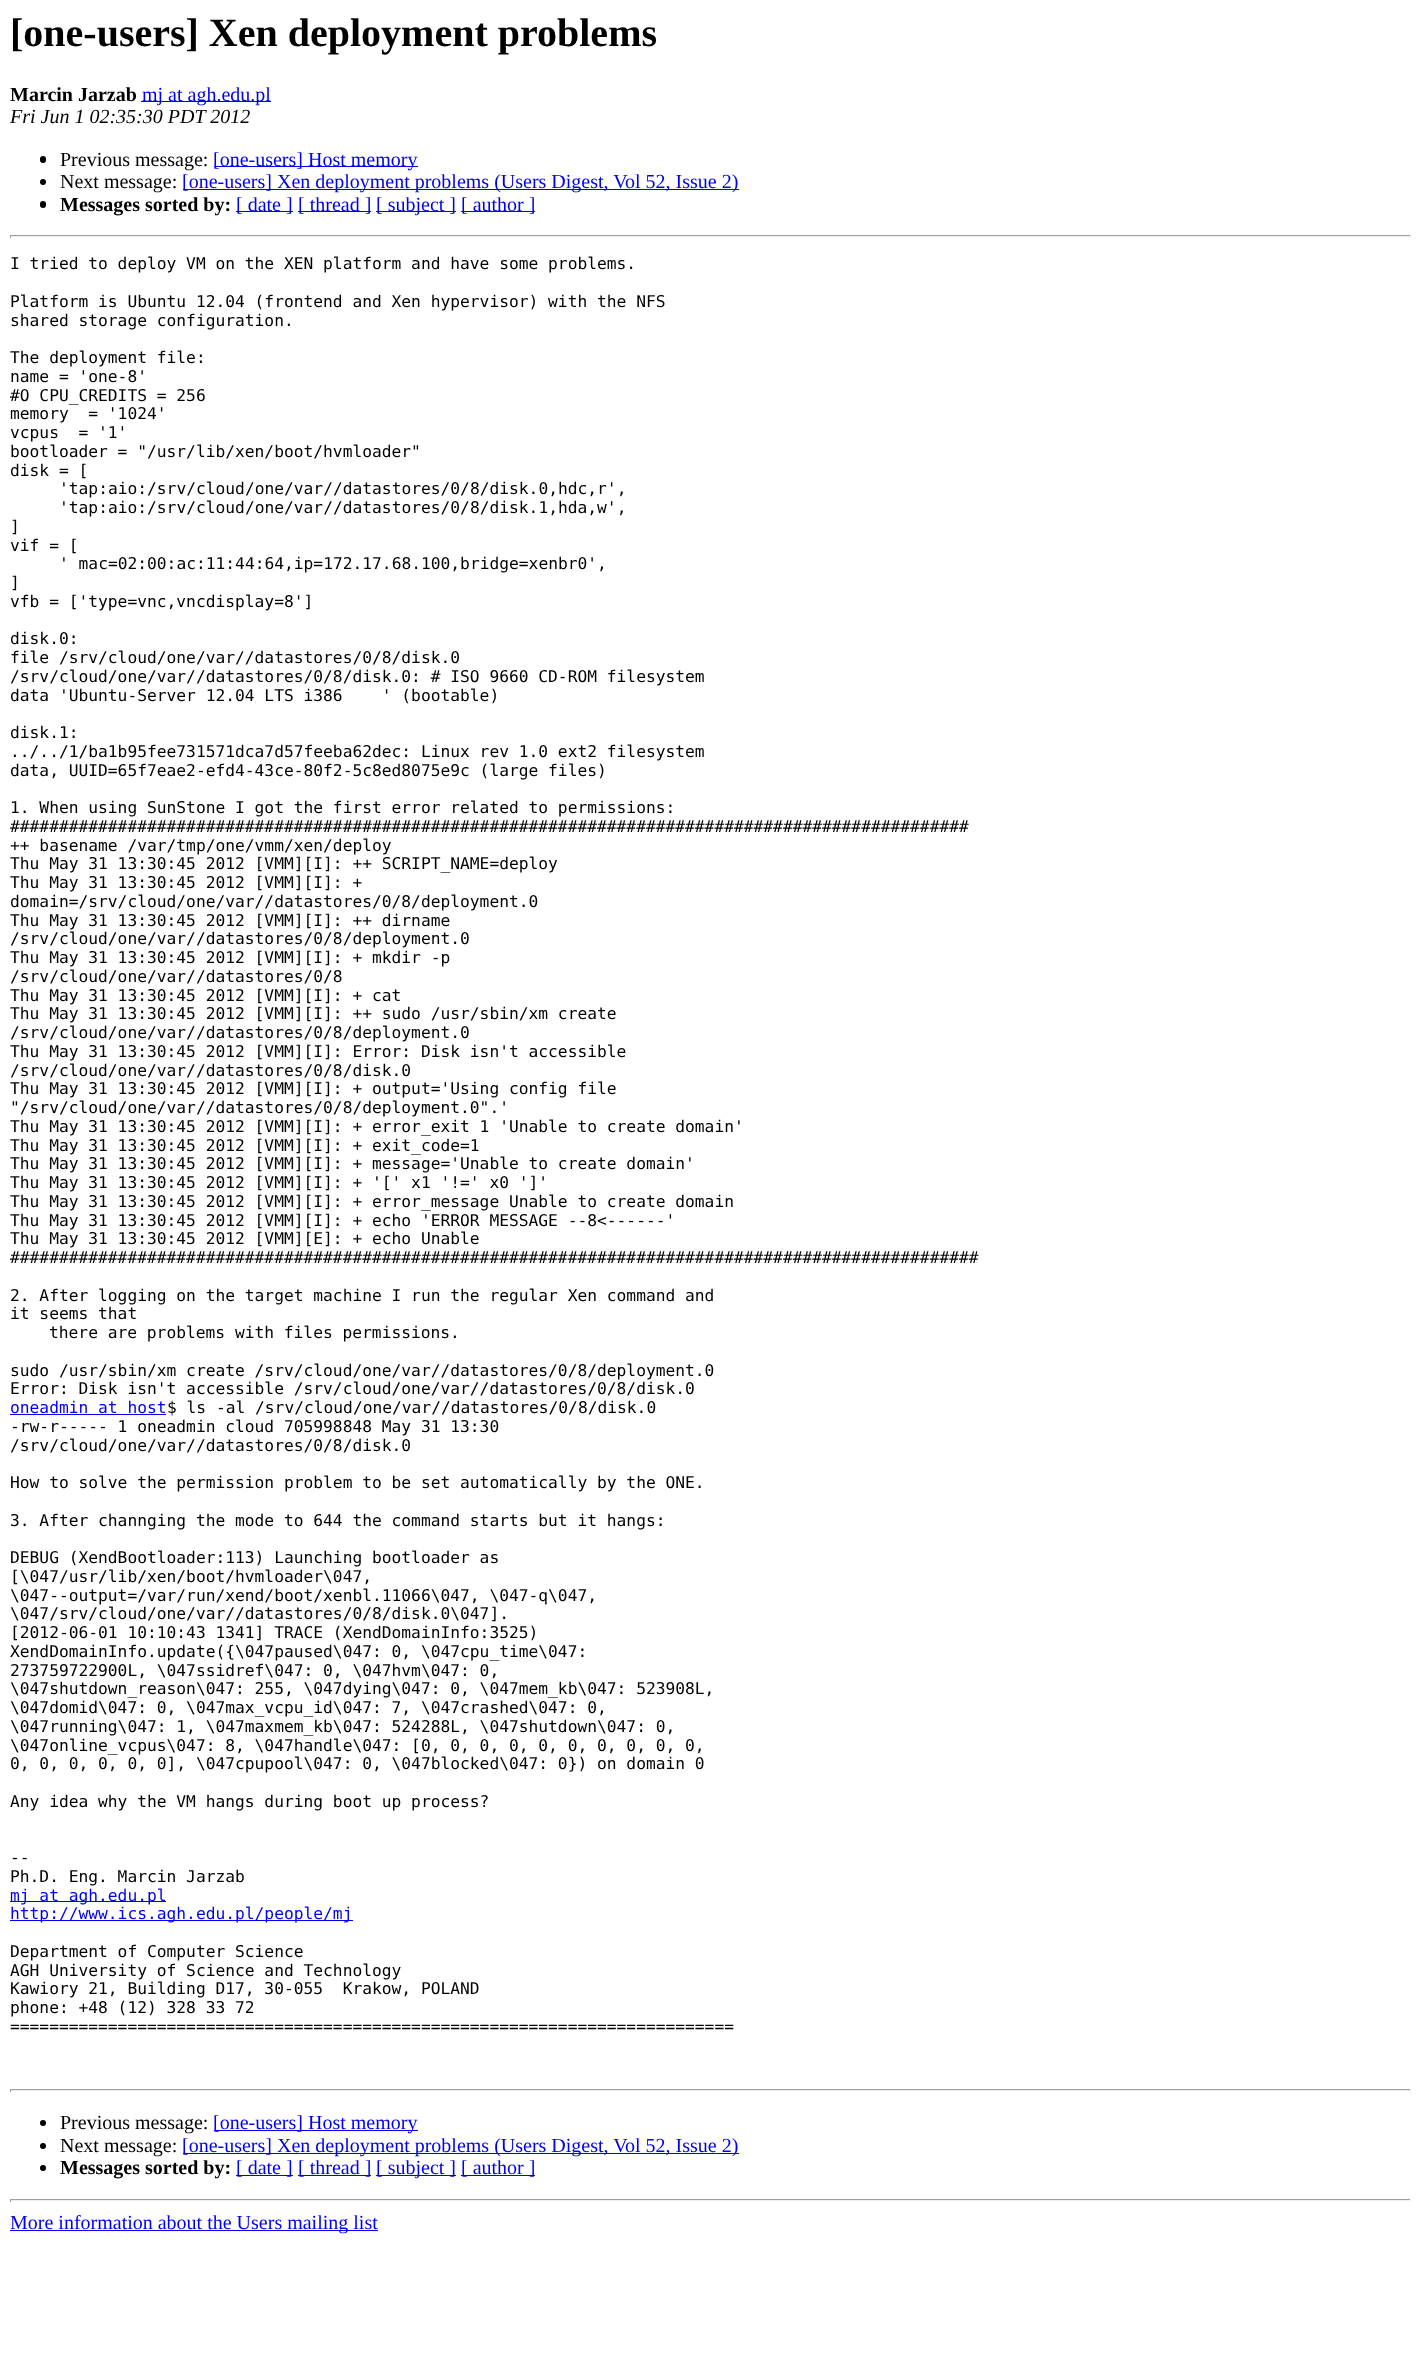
(async () => {
  const canvas = document.querySelector("canvas");
  canvas.width = 1421;
  canvas.height = 2354;
  const ctx = canvas.getContext("2d");
  ctx.miterLimit = 4;
  ctx.fontKerning = "normal";

  ctx.fillStyle = "#ffffff";
  ctx.fillRect(0, 0, 1421, 2354);
  ctx.fillStyle = "#0000ee";
  ctx.fillRect(141, 101, 130, 1);
  ctx.fillStyle = "#000000";
  ctx.beginPath();
  ctx.roundRect(40, 156, 6, 7, 3);
  ctx.fill();
  ctx.fillStyle = "#0000ee";
  ctx.fillRect(214, 166, 204, 1);
  ctx.fillStyle = "#000000";
  ctx.beginPath();
  ctx.arc(43, 182, 3, 0, Math.PI * 2);
  ctx.fill();
  ctx.fillStyle = "#0000ee";
  ctx.fillRect(183, 189, 556, 1);
  ctx.fillStyle = "#000000";
  ctx.beginPath();
  ctx.roundRect(40, 201, 6, 7, 3);
  ctx.fill();
  for (const [x, y, w, h, color] of [
    [236, 211, 57, 1, "#0000ee"],
    [298, 211, 73, 1, "#0000ee"],
    [376, 211, 80, 1, "#0000ee"],
    [461, 211, 74, 1, "#0000ee"],
    [10, 235, 1401, 1, "#9f9f9f"],
    [1410, 235, 1, 3, "#eeeeee"],
    [10, 236, 1401, 1, "#eeeeee"],
    [10, 235, 1, 3, "#9f9f9f"],
    [10, 1414, 156, 1, "#0000ee"],
    [10, 1901, 156, 1, "#0000ee"],
    [10, 1920, 343, 1, "#0000ee"],
    [10, 2089, 1401, 1, "#9f9f9f"],
    [1410, 2089, 1, 3, "#eeeeee"],
    [10, 2090, 1401, 1, "#eeeeee"],
    [10, 2089, 1, 3, "#9f9f9f"],
  ]) {
    ctx.fillStyle = color;
    ctx.fillRect(x, y, w, h);
  }
  ctx.fillStyle = "#000000";
  ctx.beginPath();
  ctx.arc(43, 2123, 3, 0, Math.PI * 2);
  ctx.fill();
  ctx.fillStyle = "#0000ee";
  ctx.fillRect(214, 2130, 204, 1);
  ctx.fillStyle = "#000000";
  ctx.beginPath();
  ctx.arc(43, 2146, 3, 0, Math.PI * 2);
  ctx.fill();
  ctx.fillStyle = "#0000ee";
  ctx.fillRect(183, 2153, 556, 1);
  ctx.fillStyle = "#000000";
  ctx.beginPath();
  ctx.arc(43, 2168, 3, 0, Math.PI * 2);
  ctx.fill();
  for (const [x, y, w, h, color] of [
    [236, 2175, 57, 1, "#0000ee"],
    [298, 2175, 73, 1, "#0000ee"],
    [376, 2175, 80, 1, "#0000ee"],
    [461, 2175, 74, 1, "#0000ee"],
    [10, 2199, 1401, 1, "#9f9f9f"],
    [1410, 2199, 1, 3, "#eeeeee"],
    [10, 2200, 1401, 1, "#eeeeee"],
    [10, 2199, 1, 3, "#9f9f9f"],
    [10, 2230, 368, 1, "#0000ee"],
  ]) {
    ctx.fillStyle = color;
    ctx.fillRect(x, y, w, h);
  }
  ctx.font = "bold 40px Liberation Serif";
  ctx.fillStyle = "#000000";
  ctx.fillText("[one-users] Xen deployment problems", 10, 46);
  ctx.font = "bold 20px Liberation Serif";
  ctx.fillText("Marcin Jarzab", 10, 101);
  ctx.font = "20px Liberation Serif";
  ctx.fillStyle = "#0000ee";
  ctx.fillText("mj at agh.edu.pl", 142, 101);
  ctx.font = "italic 20px Liberation Serif";
  ctx.fillStyle = "#000000";
  ctx.fillText("Fri Jun 1 02:35:30 PDT 2012", 10, 123);
  ctx.font = "20px Liberation Serif";
  ctx.fillText("Previous message:", 60, 166);
  ctx.fillStyle = "#0000ee";
  ctx.fillText("[one-users] Host memory", 213, 166);
  ctx.fillStyle = "#000000";
  ctx.fillText("Next message:", 60, 188);
  ctx.fillStyle = "#0000ee";
  ctx.fillText("[one-users] Xen deployment problems (Users Digest, Vol 52, Issue 2)", 182, 188);
  ctx.font = "bold 20px Liberation Serif";
  ctx.fillStyle = "#000000";
  ctx.fillText("Messages sorted by:", 60, 211);
  ctx.font = "20px Liberation Serif";
  ctx.fillStyle = "#0000ee";
  for (const [text, x, y] of [
    ["[ date ]", 236, 211],
    ["[ thread ]", 298, 211],
    ["[ subject ]", 376, 211],
    ["[ author ]", 461, 211],
  ]) {
    ctx.fillText(text, x, y);
  }
  ctx.font = "16.25px DejaVu Sans Mono";
  ctx.fillStyle = "#000000";
  for (const [text, x, y] of [
    ["I tried to deploy VM on the XEN platform and have some problems.", 10, 269],
    ["Platform is Ubuntu 12.04 (frontend and Xen hypervisor) with the NFS", 10, 307],
    ["shared storage configuration.", 10, 326],
    ["The deployment file:", 10, 363],
    ["name = 'one-8'", 10, 382],
    ["#O CPU_CREDITS = 256", 10, 401],
    ["memory  = '1024'", 10, 419],
    ["vcpus  = '1'", 10, 438],
    ["bootloader = \"/usr/lib/xen/boot/hvmloader\"", 10, 457],
    ["disk = [", 10, 476],
    ["'tap:aio:/srv/cloud/one/var//datastores/0/8/disk.0,hdc,r',", 59, 494],
    ["'tap:aio:/srv/cloud/one/var//datastores/0/8/disk.1,hda,w',", 59, 513],
    ["]", 10, 532],
    ["vif = [", 10, 551],
    ["' mac=02:00:ac:11:44:64,ip=172.17.68.100,bridge=xenbr0',", 59, 569],
    ["]", 10, 588],
    ["vfb = ['type=vnc,vncdisplay=8']", 10, 607],
    ["disk.0:", 10, 644],
    ["file /srv/cloud/one/var//datastores/0/8/disk.0", 10, 663],
    ["/srv/cloud/one/var//datastores/0/8/disk.0: # ISO 9660 CD-ROM filesystem", 10, 682],
    ["data 'Ubuntu-Server 12.04 LTS i386    ' (bootable)", 10, 701],
    ["disk.1:", 10, 738],
    ["../../1/ba1b95fee731571dca7d57feeba62dec: Linux rev 1.0 ext2 filesystem", 10, 757],
    ["data, UUID=65f7eae2-efd4-43ce-80f2-5c8ed8075e9c (large files)", 10, 776],
    ["1. When using SunStone I got the first error related to permissions:", 10, 813],
    ["##################################################################################################", 10, 832],
    ["++ basename /var/tmp/one/vmm/xen/deploy", 10, 851],
    ["Thu May 31 13:30:45 2012 [VMM][I]: ++ SCRIPT_NAME=deploy", 10, 869],
    ["Thu May 31 13:30:45 2012 [VMM][I]: +", 10, 888],
    ["domain=/srv/cloud/one/var//datastores/0/8/deployment.0", 10, 907],
    ["Thu May 31 13:30:45 2012 [VMM][I]: ++ dirname", 10, 926],
    ["/srv/cloud/one/var//datastores/0/8/deployment.0", 10, 944],
    ["Thu May 31 13:30:45 2012 [VMM][I]: + mkdir -p", 10, 963],
    ["/srv/cloud/one/var//datastores/0/8", 10, 982],
    ["Thu May 31 13:30:45 2012 [VMM][I]: + cat", 10, 1001],
    ["Thu May 31 13:30:45 2012 [VMM][I]: ++ sudo /usr/sbin/xm create", 10, 1019],
    ["/srv/cloud/one/var//datastores/0/8/deployment.0", 10, 1038],
    ["Thu May 31 13:30:45 2012 [VMM][I]: Error: Disk isn't accessible", 10, 1057],
    ["/srv/cloud/one/var//datastores/0/8/disk.0", 10, 1076],
    ["Thu May 31 13:30:45 2012 [VMM][I]: + output='Using config file", 10, 1094],
    ["\"/srv/cloud/one/var//datastores/0/8/deployment.0\".'", 10, 1113],
    ["Thu May 31 13:30:45 2012 [VMM][I]: + error_exit 1 'Unable to create domain'", 10, 1132],
    ["Thu May 31 13:30:45 2012 [VMM][I]: + exit_code=1", 10, 1151],
    ["Thu May 31 13:30:45 2012 [VMM][I]: + message='Unable to create domain'", 10, 1169],
    ["Thu May 31 13:30:45 2012 [VMM][I]: + '[' x1 '!=' x0 ']'", 10, 1188],
    ["Thu May 31 13:30:45 2012 [VMM][I]: + error_message Unable to create domain", 10, 1207],
    ["Thu May 31 13:30:45 2012 [VMM][I]: + echo 'ERROR MESSAGE --8<------'", 10, 1226],
    ["Thu May 31 13:30:45 2012 [VMM][E]: + echo Unable", 10, 1244],
    ["###################################################################################################", 10, 1263],
    ["2. After logging on the target machine I run the regular Xen command and", 10, 1301],
    ["it seems that", 10, 1319],
    ["there are problems with files permissions.", 49, 1338],
    ["sudo /usr/sbin/xm create /srv/cloud/one/var//datastores/0/8/deployment.0", 10, 1376],
    ["Error: Disk isn't accessible /srv/cloud/one/var//datastores/0/8/disk.0", 10, 1394],
  ]) {
    ctx.fillText(text, x, y);
  }
  ctx.fillStyle = "#0000ee";
  ctx.fillText("oneadmin at host", 10, 1413);
  ctx.fillStyle = "#000000";
  for (const [text, x, y] of [
    ["$ ls -al /srv/cloud/one/var//datastores/0/8/disk.0", 167, 1413],
    ["-rw-r----- 1 oneadmin cloud 705998848 May 31 13:30", 10, 1432],
    ["/srv/cloud/one/var//datastores/0/8/disk.0", 10, 1451],
    ["How to solve the permission problem to be set automatically by the ONE.", 10, 1488],
    ["3. After channging the mode to 644 the command starts but it hangs:", 10, 1526],
    ["DEBUG (XendBootloader:113) Launching bootloader as", 10, 1563],
    ["[\\047/usr/lib/xen/boot/hvmloader\\047,", 10, 1582],
    ["\\047--output=/var/run/xend/boot/xenbl.11066\\047, \\047-q\\047,", 10, 1601],
    ["\\047/srv/cloud/one/var//datastores/0/8/disk.0\\047].", 10, 1619],
    ["[2012-06-01 10:10:43 1341] TRACE (XendDomainInfo:3525)", 10, 1638],
    ["XendDomainInfo.update({\\047paused\\047: 0, \\047cpu_time\\047:", 10, 1657],
    ["273759722900L, \\047ssidref\\047: 0, \\047hvm\\047: 0,", 10, 1676],
    ["\\047shutdown_reason\\047: 255, \\047dying\\047: 0, \\047mem_kb\\047: 523908L,", 10, 1694],
    ["\\047domid\\047: 0, \\047max_vcpu_id\\047: 7, \\047crashed\\047: 0,", 10, 1713],
    ["\\047running\\047: 1, \\047maxmem_kb\\047: 524288L, \\047shutdown\\047: 0,", 10, 1732],
    ["\\047online_vcpus\\047: 8, \\047handle\\047: [0, 0, 0, 0, 0, 0, 0, 0, 0, 0,", 10, 1751],
    ["0, 0, 0, 0, 0, 0], \\047cpupool\\047: 0, \\047blocked\\047: 0}) on domain 0", 10, 1769],
    ["Any idea why the VM hangs during boot up process?", 10, 1807],
    ["--", 10, 1863],
    ["Ph.D. Eng. Marcin Jarzab", 10, 1882],
  ]) {
    ctx.fillText(text, x, y);
  }
  ctx.fillStyle = "#0000ee";
  ctx.fillText("mj at agh.edu.pl", 10, 1901);
  ctx.fillText("http://www.ics.agh.edu.pl/people/mj", 10, 1919);
  ctx.fillStyle = "#000000";
  for (const [text, x, y] of [
    ["Department of Computer Science", 10, 1957],
    ["AGH University of Science and Technology", 10, 1976],
    ["Kawiory 21, Building D17, 30-055  Krakow, POLAND", 10, 1994],
    ["phone: +48 (12) 328 33 72", 10, 2013],
    ["==========================================================================", 10, 2032],
  ]) {
    ctx.fillText(text, x, y);
  }
  ctx.font = "20px Liberation Serif";
  ctx.fillText("Previous message:", 60, 2129);
  ctx.fillStyle = "#0000ee";
  ctx.fillText("[one-users] Host memory", 213, 2129);
  ctx.fillStyle = "#000000";
  ctx.fillText("Next message:", 60, 2152);
  ctx.fillStyle = "#0000ee";
  ctx.fillText("[one-users] Xen deployment problems (Users Digest, Vol 52, Issue 2)", 182, 2152);
  ctx.font = "bold 20px Liberation Serif";
  ctx.fillStyle = "#000000";
  ctx.fillText("Messages sorted by:", 60, 2174);
  ctx.font = "20px Liberation Serif";
  ctx.fillStyle = "#0000ee";
  for (const [text, x, y] of [
    ["[ date ]", 236, 2174],
    ["[ thread ]", 298, 2174],
    ["[ subject ]", 376, 2174],
    ["[ author ]", 461, 2174],
    ["More information about the Users mailing list", 10, 2229],
  ]) {
    ctx.fillText(text, x, y);
  }
})();
